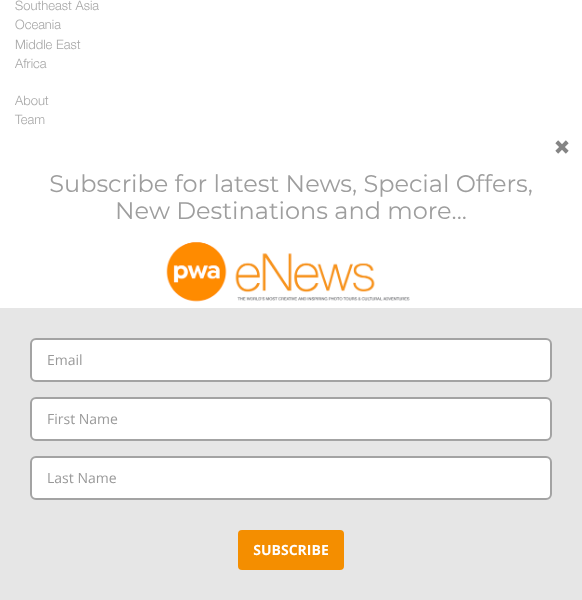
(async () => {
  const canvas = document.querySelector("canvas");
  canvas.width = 582;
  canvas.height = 600;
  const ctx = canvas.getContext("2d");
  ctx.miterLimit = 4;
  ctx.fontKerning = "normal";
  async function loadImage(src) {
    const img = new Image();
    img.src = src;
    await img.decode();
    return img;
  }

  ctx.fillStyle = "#ffffff";
  ctx.fillRect(0, 0, 582, 600);
  ctx.drawImage(await loadImage("img/1.png"), 0, 134, 582, 466);
  ctx.font = "300 13px Helvetica Neue";
  ctx.fillStyle = "#a8a8a8";
  for (const [text, x, y] of [
    ["Southeast Asia", 15, 10],
    ["Oceania", 15, 29],
    ["Middle East", 15, 49],
    ["Africa", 15, 68],
    ["About", 15, 105],
    ["Team", 15, 124],
  ]) {
    ctx.fillText(text, x, y);
  }
})();
